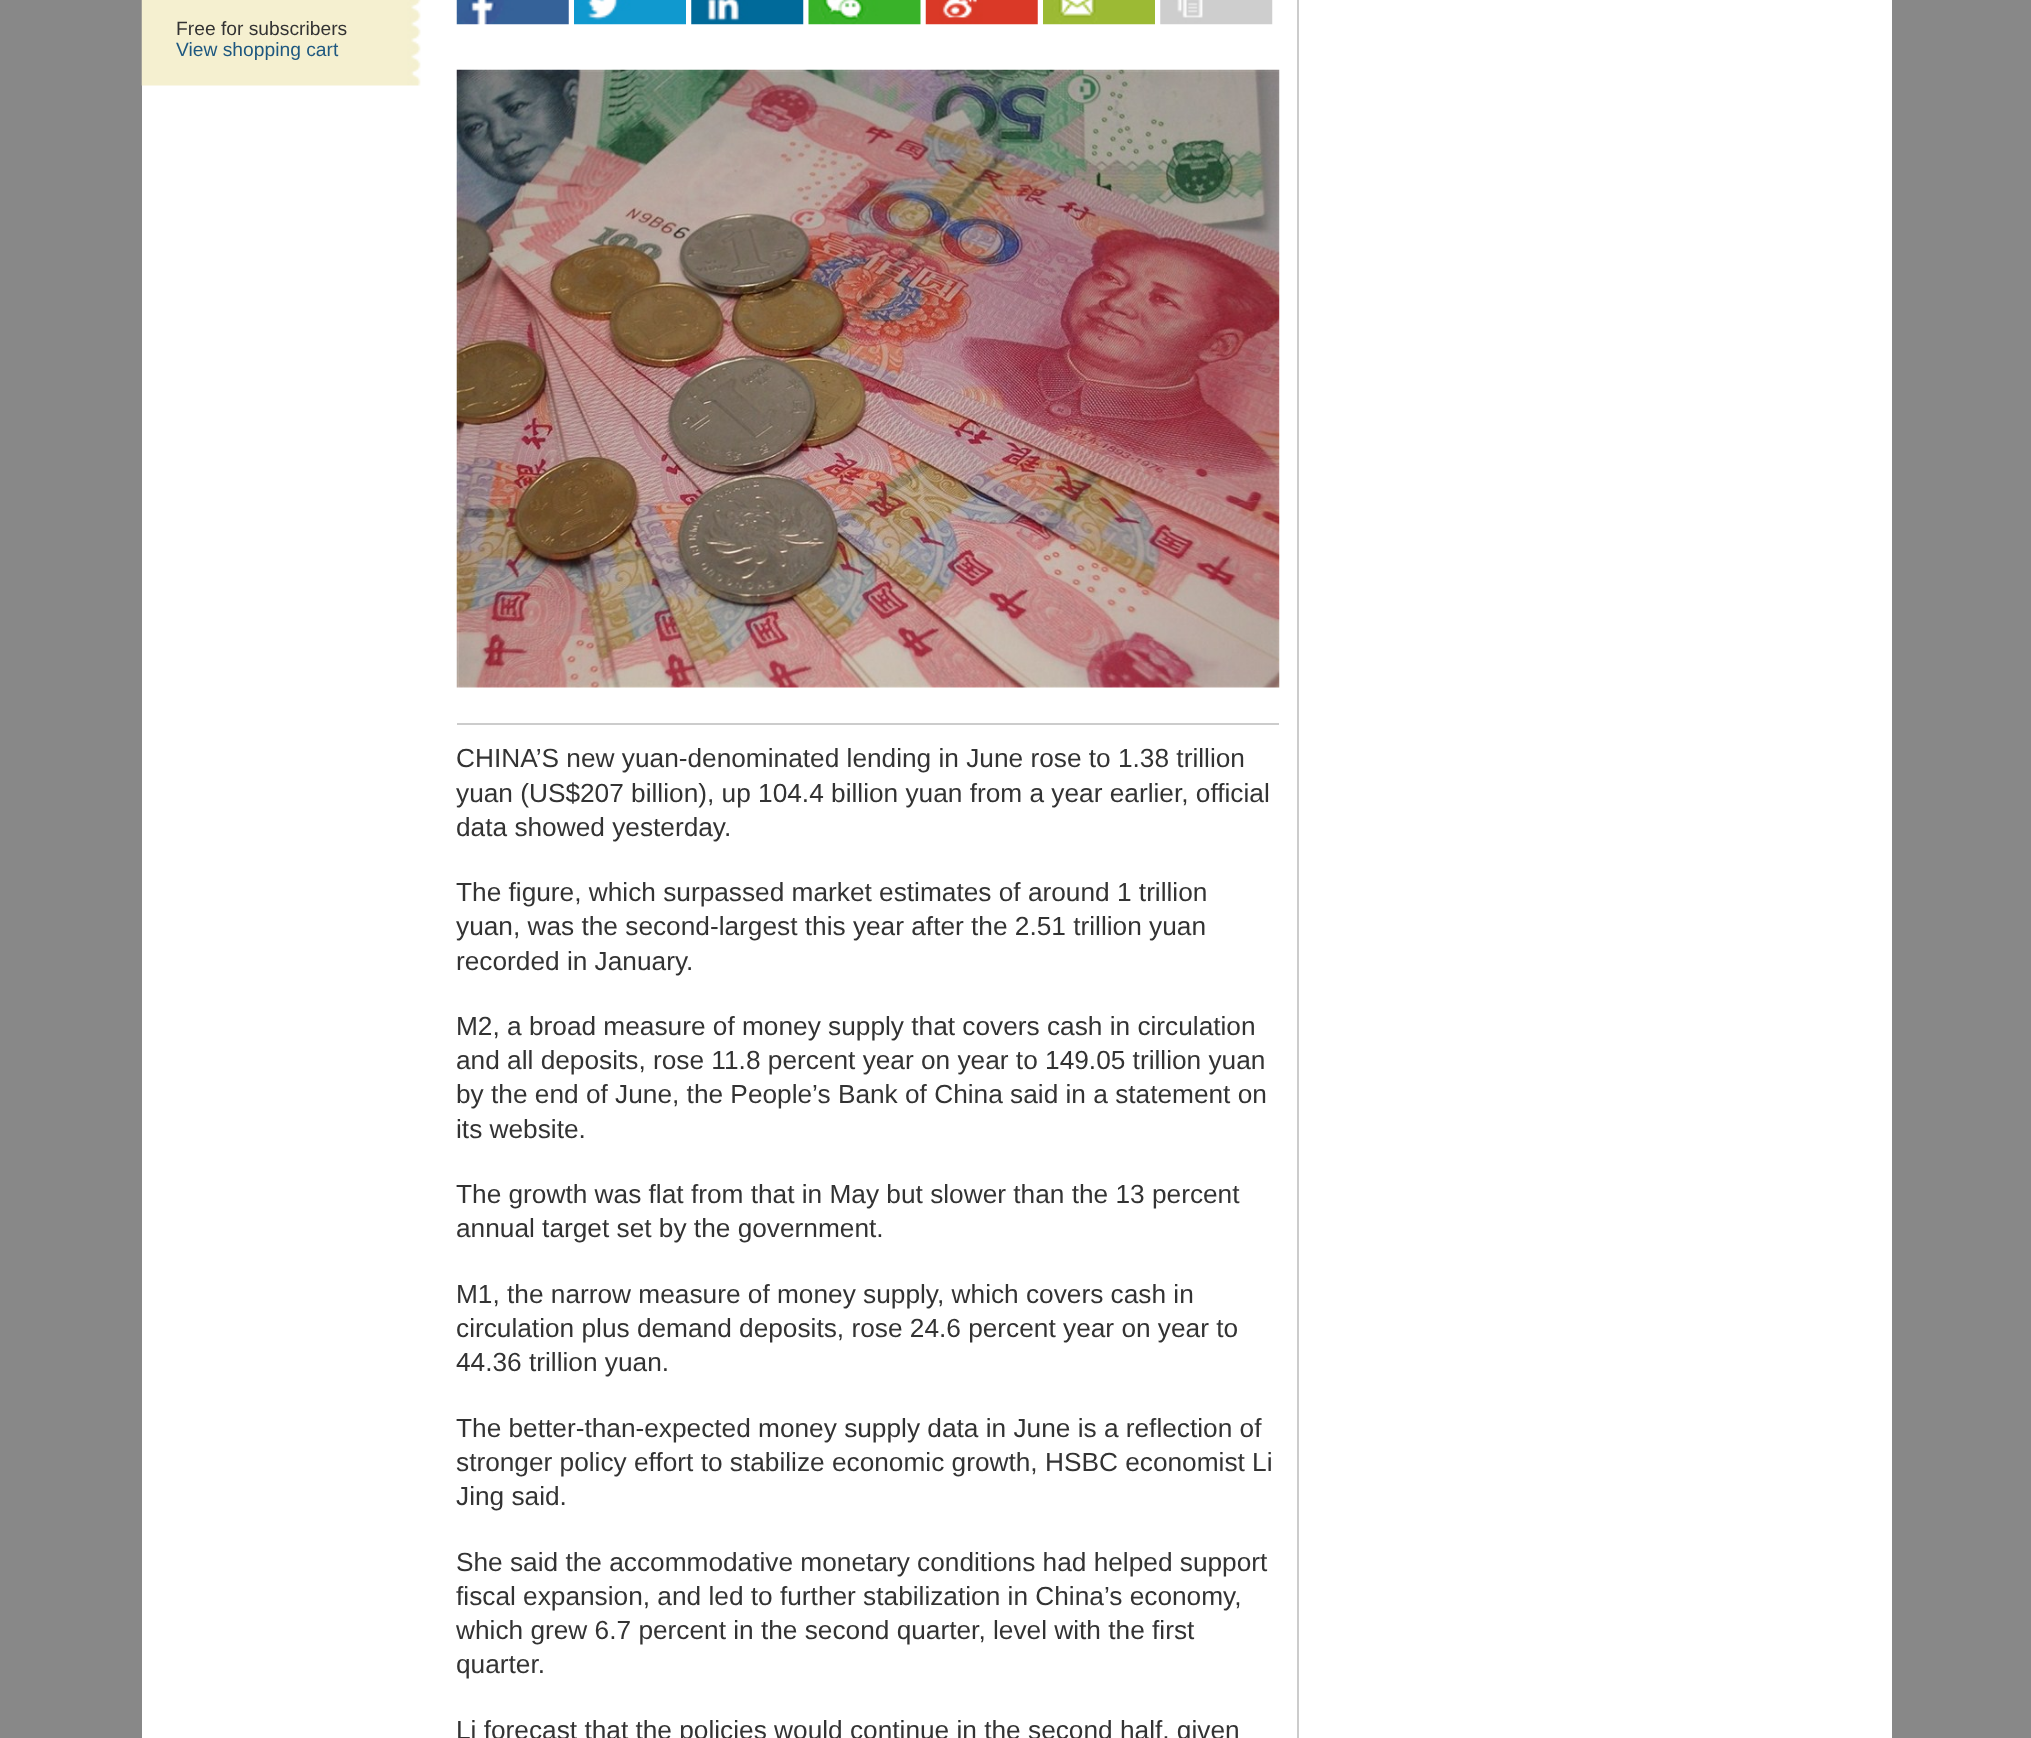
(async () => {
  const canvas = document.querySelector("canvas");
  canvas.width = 2031;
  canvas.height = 1738;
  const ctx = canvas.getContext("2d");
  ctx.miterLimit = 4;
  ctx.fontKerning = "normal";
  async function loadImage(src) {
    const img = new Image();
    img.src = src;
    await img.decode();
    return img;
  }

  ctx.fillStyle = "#888888";
  ctx.fillRect(0, 0, 2031, 1738);
  ctx.fillStyle = "#ffffff";
  ctx.fillRect(142, 0, 1750, 1738);
  ctx.drawImage(await loadImage("img/1.png"), 141, 0, 280, 86);
  ctx.fillStyle = "#cccccc";
  ctx.fillRect(1297, 0, 2, 1738);
  ctx.drawImage(await loadImage("img/2.png"), 456, 0, 113, 25);
  ctx.drawImage(await loadImage("img/3.png"), 574, 0, 112, 25);
  ctx.drawImage(await loadImage("img/4.png"), 691, 0, 113, 25);
  ctx.drawImage(await loadImage("img/5.png"), 808, 0, 113, 25);
  ctx.drawImage(await loadImage("img/6.png"), 925, 0, 113, 25);
  ctx.drawImage(await loadImage("img/7.png"), 1043, 0, 112, 25);
  ctx.drawImage(await loadImage("img/8.png"), 1160, 0, 113, 25);
  ctx.fillRect(457, 723, 822, 2);
  ctx.drawImage(await loadImage("img/9.png"), 456, 69, 824, 619);
  ctx.font = "19.25px Liberation Sans";
  ctx.fillStyle = "#333333";
  ctx.fillText("Free for subscribers", 176, 35);
  ctx.fillStyle = "#1e5880";
  ctx.fillText("View shopping cart", 176, 56);
  ctx.font = "26.25px Liberation Sans";
  ctx.fillStyle = "#333333";
  for (const [text, x, y] of [
    ["CHINA’S new yuan-denominated lending in June rose to 1.38 trillion", 456, 767],
    ["yuan (US$207 billion), up 104.4 billion yuan from a year earlier, official", 456, 802],
    ["data showed yesterday.", 456, 836],
    ["The figure, which surpassed market estimates of around 1 trillion", 456, 901],
    ["yuan, was the second-largest this year after the 2.51 trillion yuan", 456, 935],
    ["recorded in January.", 456, 970],
    ["M2, a broad measure of money supply that covers cash in circulation", 456, 1035],
    ["and all deposits, rose 11.8 percent year on year to 149.05 trillion yuan", 456, 1069],
    ["by the end of June, the People’s Bank of China said in a statement on", 456, 1103],
    ["its website.", 456, 1138],
    ["The growth was flat from that in May but slower than the 13 percent", 456, 1203],
    ["annual target set by the government.", 456, 1237],
    ["M1, the narrow measure of money supply, which covers cash in", 456, 1303],
    ["circulation plus demand deposits, rose 24.6 percent year on year to", 456, 1337],
    ["44.36 trillion yuan.", 456, 1371],
    ["The better-than-expected money supply data in June is a reflection of", 456, 1437],
    ["stronger policy effort to stabilize economic growth, HSBC economist Li", 456, 1471],
    ["Jing said.", 456, 1505],
    ["She said the accommodative monetary conditions had helped support", 456, 1571],
    ["fiscal expansion, and led to further stabilization in China’s economy,", 456, 1605],
    ["which grew 6.7 percent in the second quarter, level with the first", 456, 1639],
    ["quarter.", 456, 1673],
    ["Li forecast that the policies would continue in the second half, given", 456, 1739],
  ]) {
    ctx.fillText(text, x, y);
  }
})();
